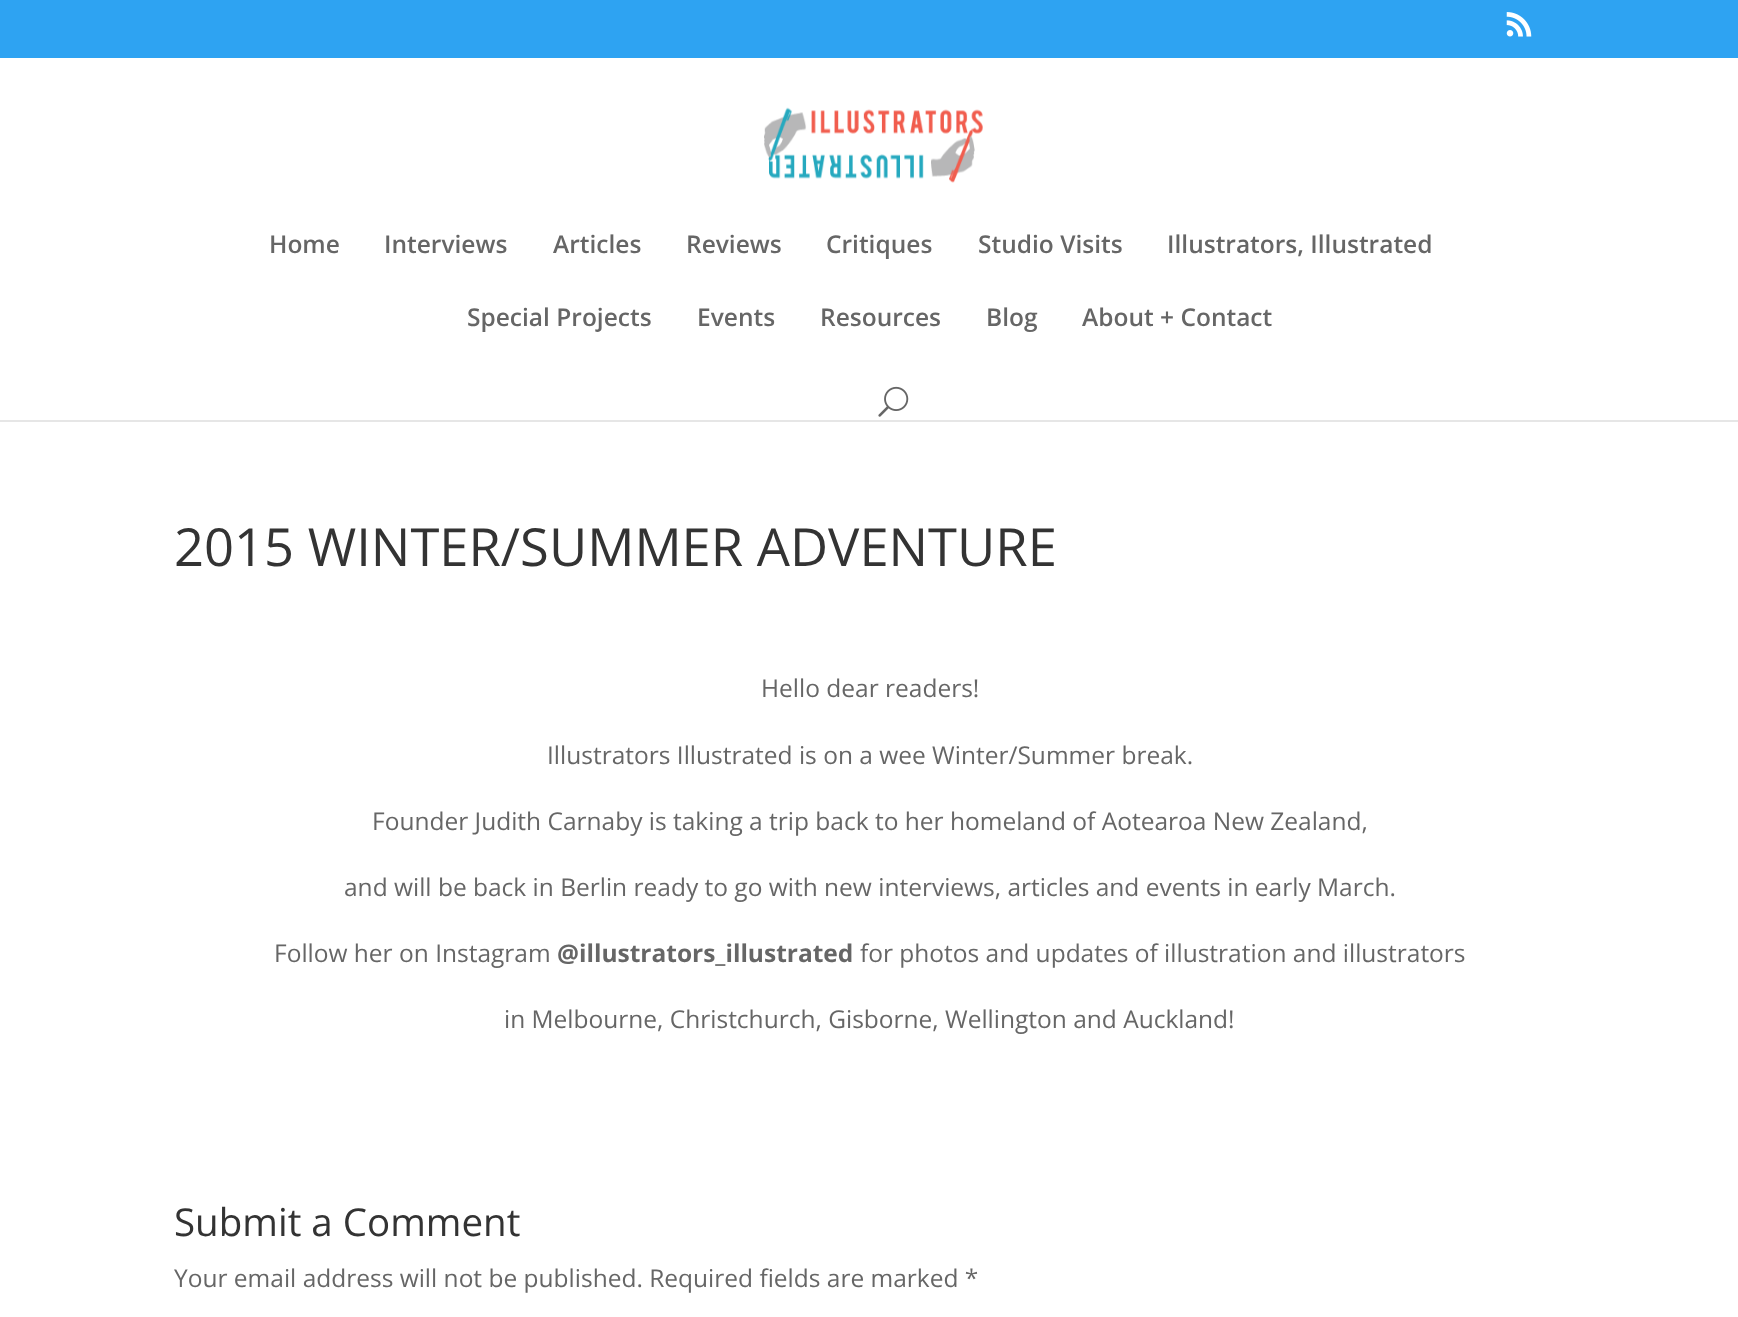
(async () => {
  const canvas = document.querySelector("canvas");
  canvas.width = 1738;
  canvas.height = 1317;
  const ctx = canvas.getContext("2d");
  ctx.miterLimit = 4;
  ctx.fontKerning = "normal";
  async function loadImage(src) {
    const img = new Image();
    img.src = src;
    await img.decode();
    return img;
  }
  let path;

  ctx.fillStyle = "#2ea3f2";
  ctx.fillRect(0, 0, 1738, 1317);
  ctx.drawImage(await loadImage("img/1.png"), 1506, 12, 26, 25);
  ctx.fillStyle = "#e6e6e6";
  path = new Path2D("M0 420V422H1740V60V420Z");
  ctx.fill(path);
  ctx.fillStyle = "#ffffff";
  ctx.fillRect(0, 58, 1738, 362);
  ctx.drawImage(await loadImage("img/2.png"), 764, 107, 219, 76);
  ctx.drawImage(await loadImage("img/3.png"), 878, 386, 31, 31);
  ctx.fillRect(0, 422, 1738, 895);
  ctx.font = "600 24.5px Open Sans";
  ctx.fillStyle = "#666666";
  for (const [text, x, y] of [
    ["Home", 269, 253],
    ["Interviews", 384, 253],
    ["Articles", 553, 253],
    ["Reviews", 686, 253],
    ["Critiques", 826, 253],
    ["Studio Visits", 978, 253],
    ["Illustrators, Illustrated", 1167, 253],
    ["Special Projects", 467, 326],
    ["Events", 697, 326],
    ["Resources", 820, 326],
    ["Blog", 986, 326],
    ["About + Contact", 1082, 326],
  ]) {
    ctx.fillText(text, x, y);
  }
  ctx.font = "52.5px Open Sans";
  ctx.fillStyle = "#333333";
  ctx.fillText("2015 WINTER/SUMMER ADVENTURE", 174, 566);
  ctx.font = "24.5px Open Sans";
  ctx.fillStyle = "#666666";
  for (const [text, x, y] of [
    ["Hello dear readers!", 761, 697],
    ["Illustrators Illustrated is on a wee Winter/Summer break.", 547, 764],
    ["Founder Judith Carnaby is taking a trip back to her homeland of Aotearoa New Zealand,", 372, 830],
    ["and will be back in Berlin ready to go with new interviews, articles and events in early March.", 344, 896],
    ["Follow her on Instagram", 274, 962],
  ]) {
    ctx.fillText(text, x, y);
  }
  ctx.font = "bold 24.5px Open Sans";
  ctx.fillText("@illustrators_illustrated", 557, 962);
  ctx.font = "24.5px Open Sans";
  ctx.fillText("for photos and updates of illustration and illustrators", 860, 962);
  ctx.fillText("in Melbourne, Christchurch, Gisborne, Wellington and Auckland!", 504, 1028);
  ctx.font = "38.5px Open Sans";
  ctx.fillStyle = "#333333";
  ctx.fillText("Submit a Comment", 174, 1236);
  ctx.font = "24.5px Open Sans";
  ctx.fillStyle = "#666666";
  ctx.fillText("Your email address will not be published. Required fields are marked *", 174, 1287);
})();
